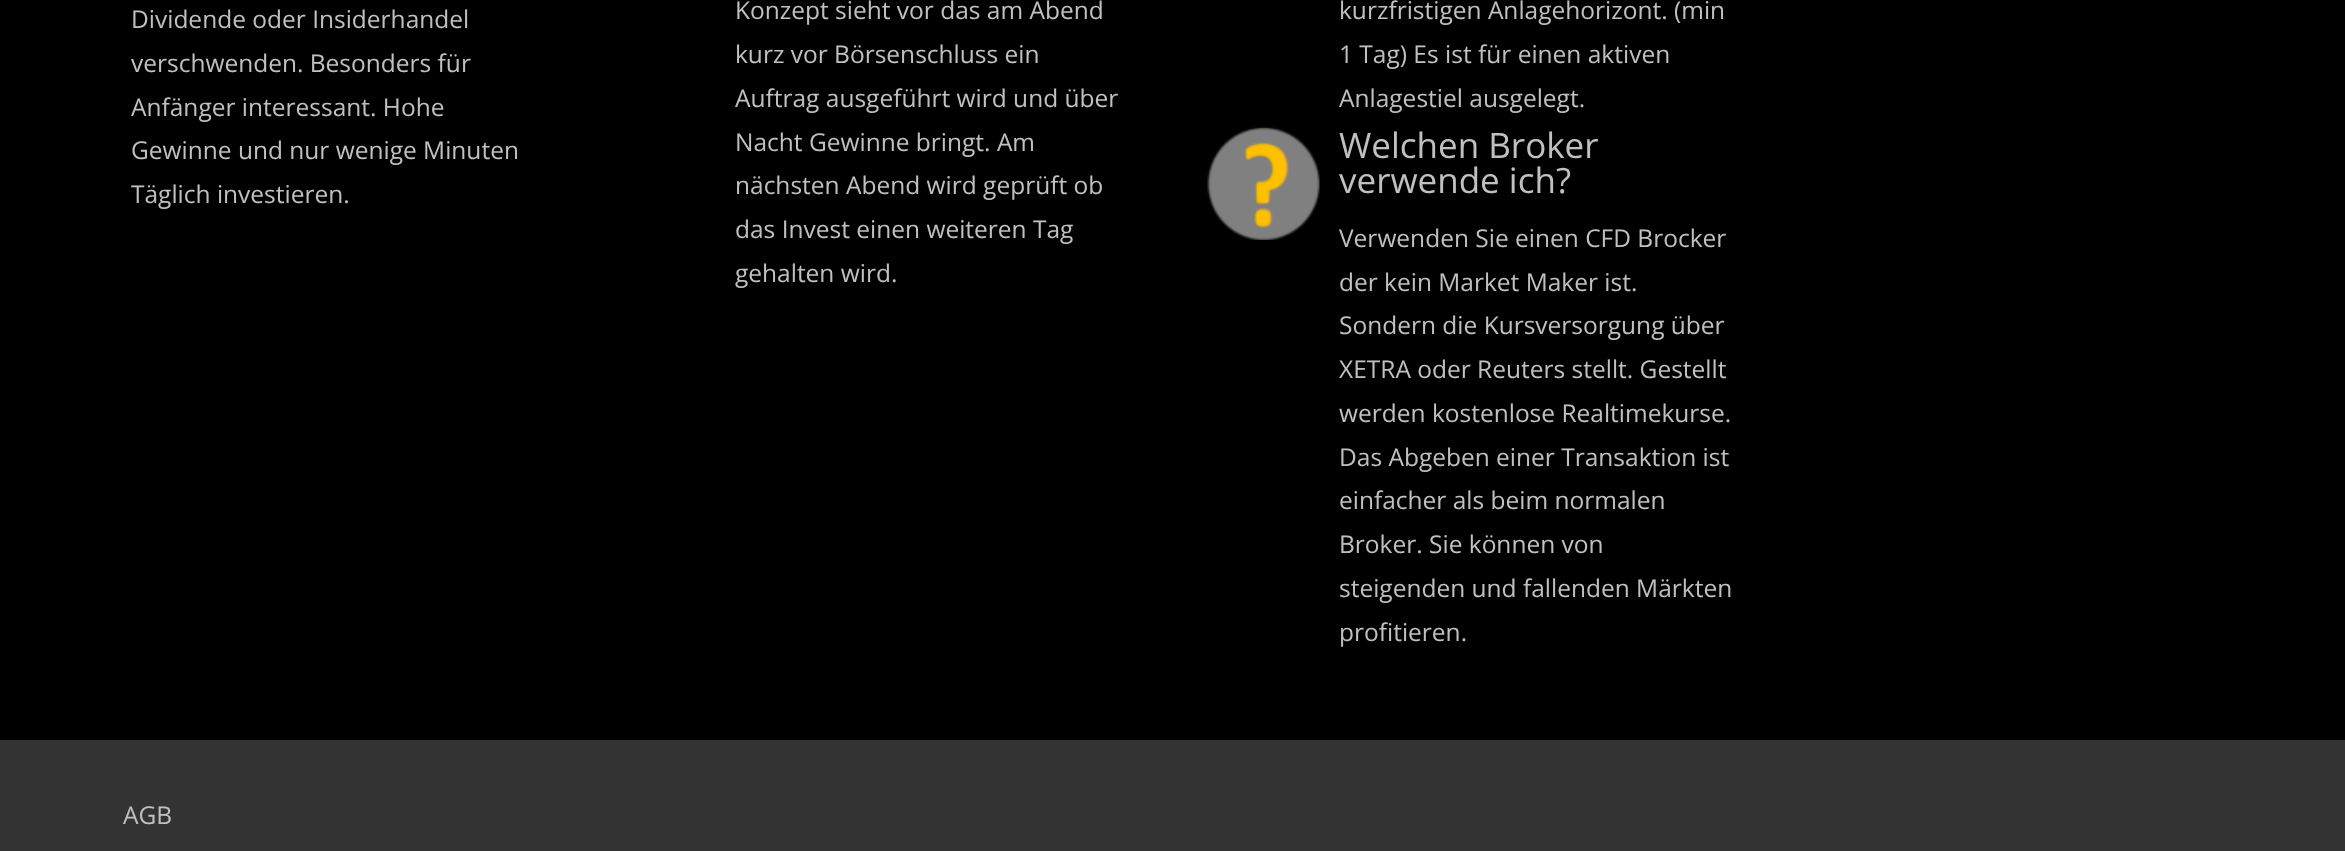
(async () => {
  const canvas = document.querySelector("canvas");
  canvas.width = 2345;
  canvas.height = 851;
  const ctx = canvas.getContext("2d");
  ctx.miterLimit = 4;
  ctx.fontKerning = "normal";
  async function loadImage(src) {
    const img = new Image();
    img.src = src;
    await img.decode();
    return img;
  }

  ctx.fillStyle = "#000000";
  ctx.fillRect(0, 0, 2345, 851);
  ctx.drawImage(await loadImage("img/1.png"), 1207, 127, 113, 113);
  ctx.fillStyle = "#333333";
  ctx.fillRect(0, 740, 2345, 111);
  ctx.font = "24.5px Open Sans";
  ctx.fillStyle = "#c0c0c0";
  for (const [text, x, y] of [
    ["Dividende oder Insiderhandel", 131, 28],
    ["verschwenden. Besonders für", 131, 72],
    ["Anfänger interessant. Hohe", 131, 116],
    ["Gewinne und nur wenige Minuten", 131, 159],
    ["Täglich investieren.", 131, 203],
    ["Konzept sieht vor das am Abend", 735, 19],
    ["kurz vor Börsenschluss ein", 735, 63],
    ["Auftrag ausgeführt wird und über", 735, 107],
    ["Nacht Gewinne bringt. Am", 735, 151],
    ["nächsten Abend wird geprüft ob", 735, 194],
    ["das Invest einen weiteren Tag", 735, 238],
    ["gehalten wird.", 735, 282],
    ["kurzfristigen Anlagehorizont. (min", 1339, 19],
    ["1 Tag) Es ist für einen aktiven", 1339, 63],
    ["Anlagestiel ausgelegt.", 1339, 107],
  ]) {
    ctx.fillText(text, x, y);
  }
  ctx.font = "35px Open Sans";
  ctx.fillText("Welchen Broker", 1339, 158);
  ctx.fillText("verwende ich?", 1339, 193);
  ctx.font = "24.5px Open Sans";
  for (const [text, x, y] of [
    ["Verwenden Sie einen CFD Brocker", 1339, 247],
    ["der kein Market Maker ist.", 1339, 291],
    ["Sondern die Kursversorgung über", 1339, 334],
    ["XETRA oder Reuters stellt. Gestellt", 1339, 378],
    ["werden kostenlose Realtimekurse.", 1339, 422],
    ["Das Abgeben einer Transaktion ist", 1339, 466],
    ["einfacher als beim normalen", 1339, 509],
    ["Broker. Sie können von", 1339, 553],
    ["steigenden und fallenden Märkten", 1339, 597],
    ["profitieren.", 1339, 641],
    ["AGB", 123, 824],
  ]) {
    ctx.fillText(text, x, y);
  }
})();
